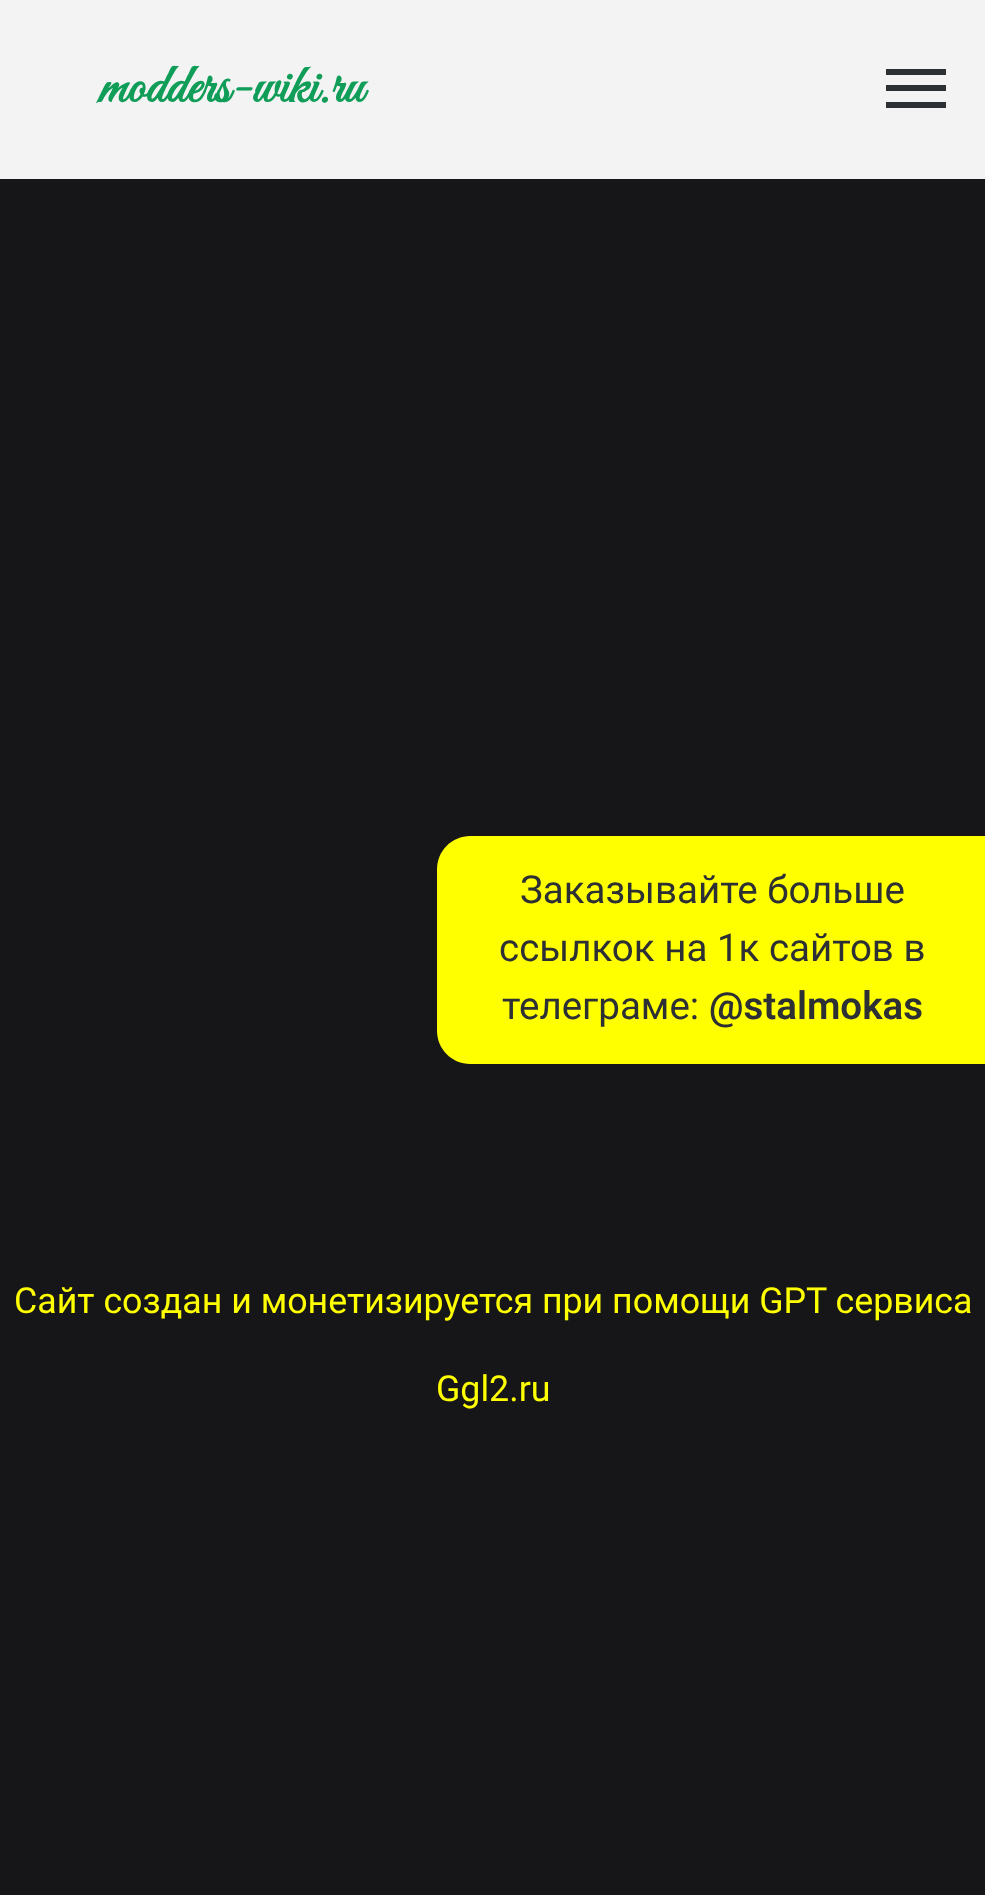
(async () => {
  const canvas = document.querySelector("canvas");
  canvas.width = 985;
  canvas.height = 1895;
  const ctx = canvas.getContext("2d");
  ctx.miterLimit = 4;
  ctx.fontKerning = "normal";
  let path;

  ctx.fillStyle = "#161619";
  ctx.fillRect(0, 0, 985, 1895);
  for (const [x, y, w, h, color] of [
    [0, 0, 985, 179, "#f3f3f3"],
    [886, 85, 60, 6, "#2c2f34"],
    [886, 69, 60, 6, "#2c2f34"],
    [886, 102, 60, 6, "#2c2f34"],
  ]) {
    ctx.fillStyle = color;
    ctx.fillRect(x, y, w, h);
  }
  ctx.fillStyle = "#ffff00";
  path = new Path2D("M470 836H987V1064H470C452 1064 437 1049 437 1031V869C437 851 452 836 470 836Z");
  ctx.fill(path);
  ctx.font = "bold 55px Great Vibes";
  ctx.fillStyle = "#0f9d58";
  ctx.fillText("modders-wiki.ru", 99, 102);
  ctx.font = "35.75px Roboto";
  ctx.fillStyle = "#ffff00";
  ctx.fillText("Сайт создан и монетизируется при помощи GPT сервиса", 14, 1313);
  ctx.fillText("Ggl2.ru", 436, 1401);
  ctx.font = "38.5px Roboto";
  ctx.fillStyle = "#2c2f34";
  for (const [text, x, y] of [
    ["Заказывайте больше", 520, 903],
    ["ссылкок на 1к сайтов в", 499, 961],
    ["телеграме:", 502, 1019],
  ]) {
    ctx.fillText(text, x, y);
  }
  ctx.font = "600 38.5px Roboto";
  ctx.fillText("@stalmokas", 709, 1019);
})();
